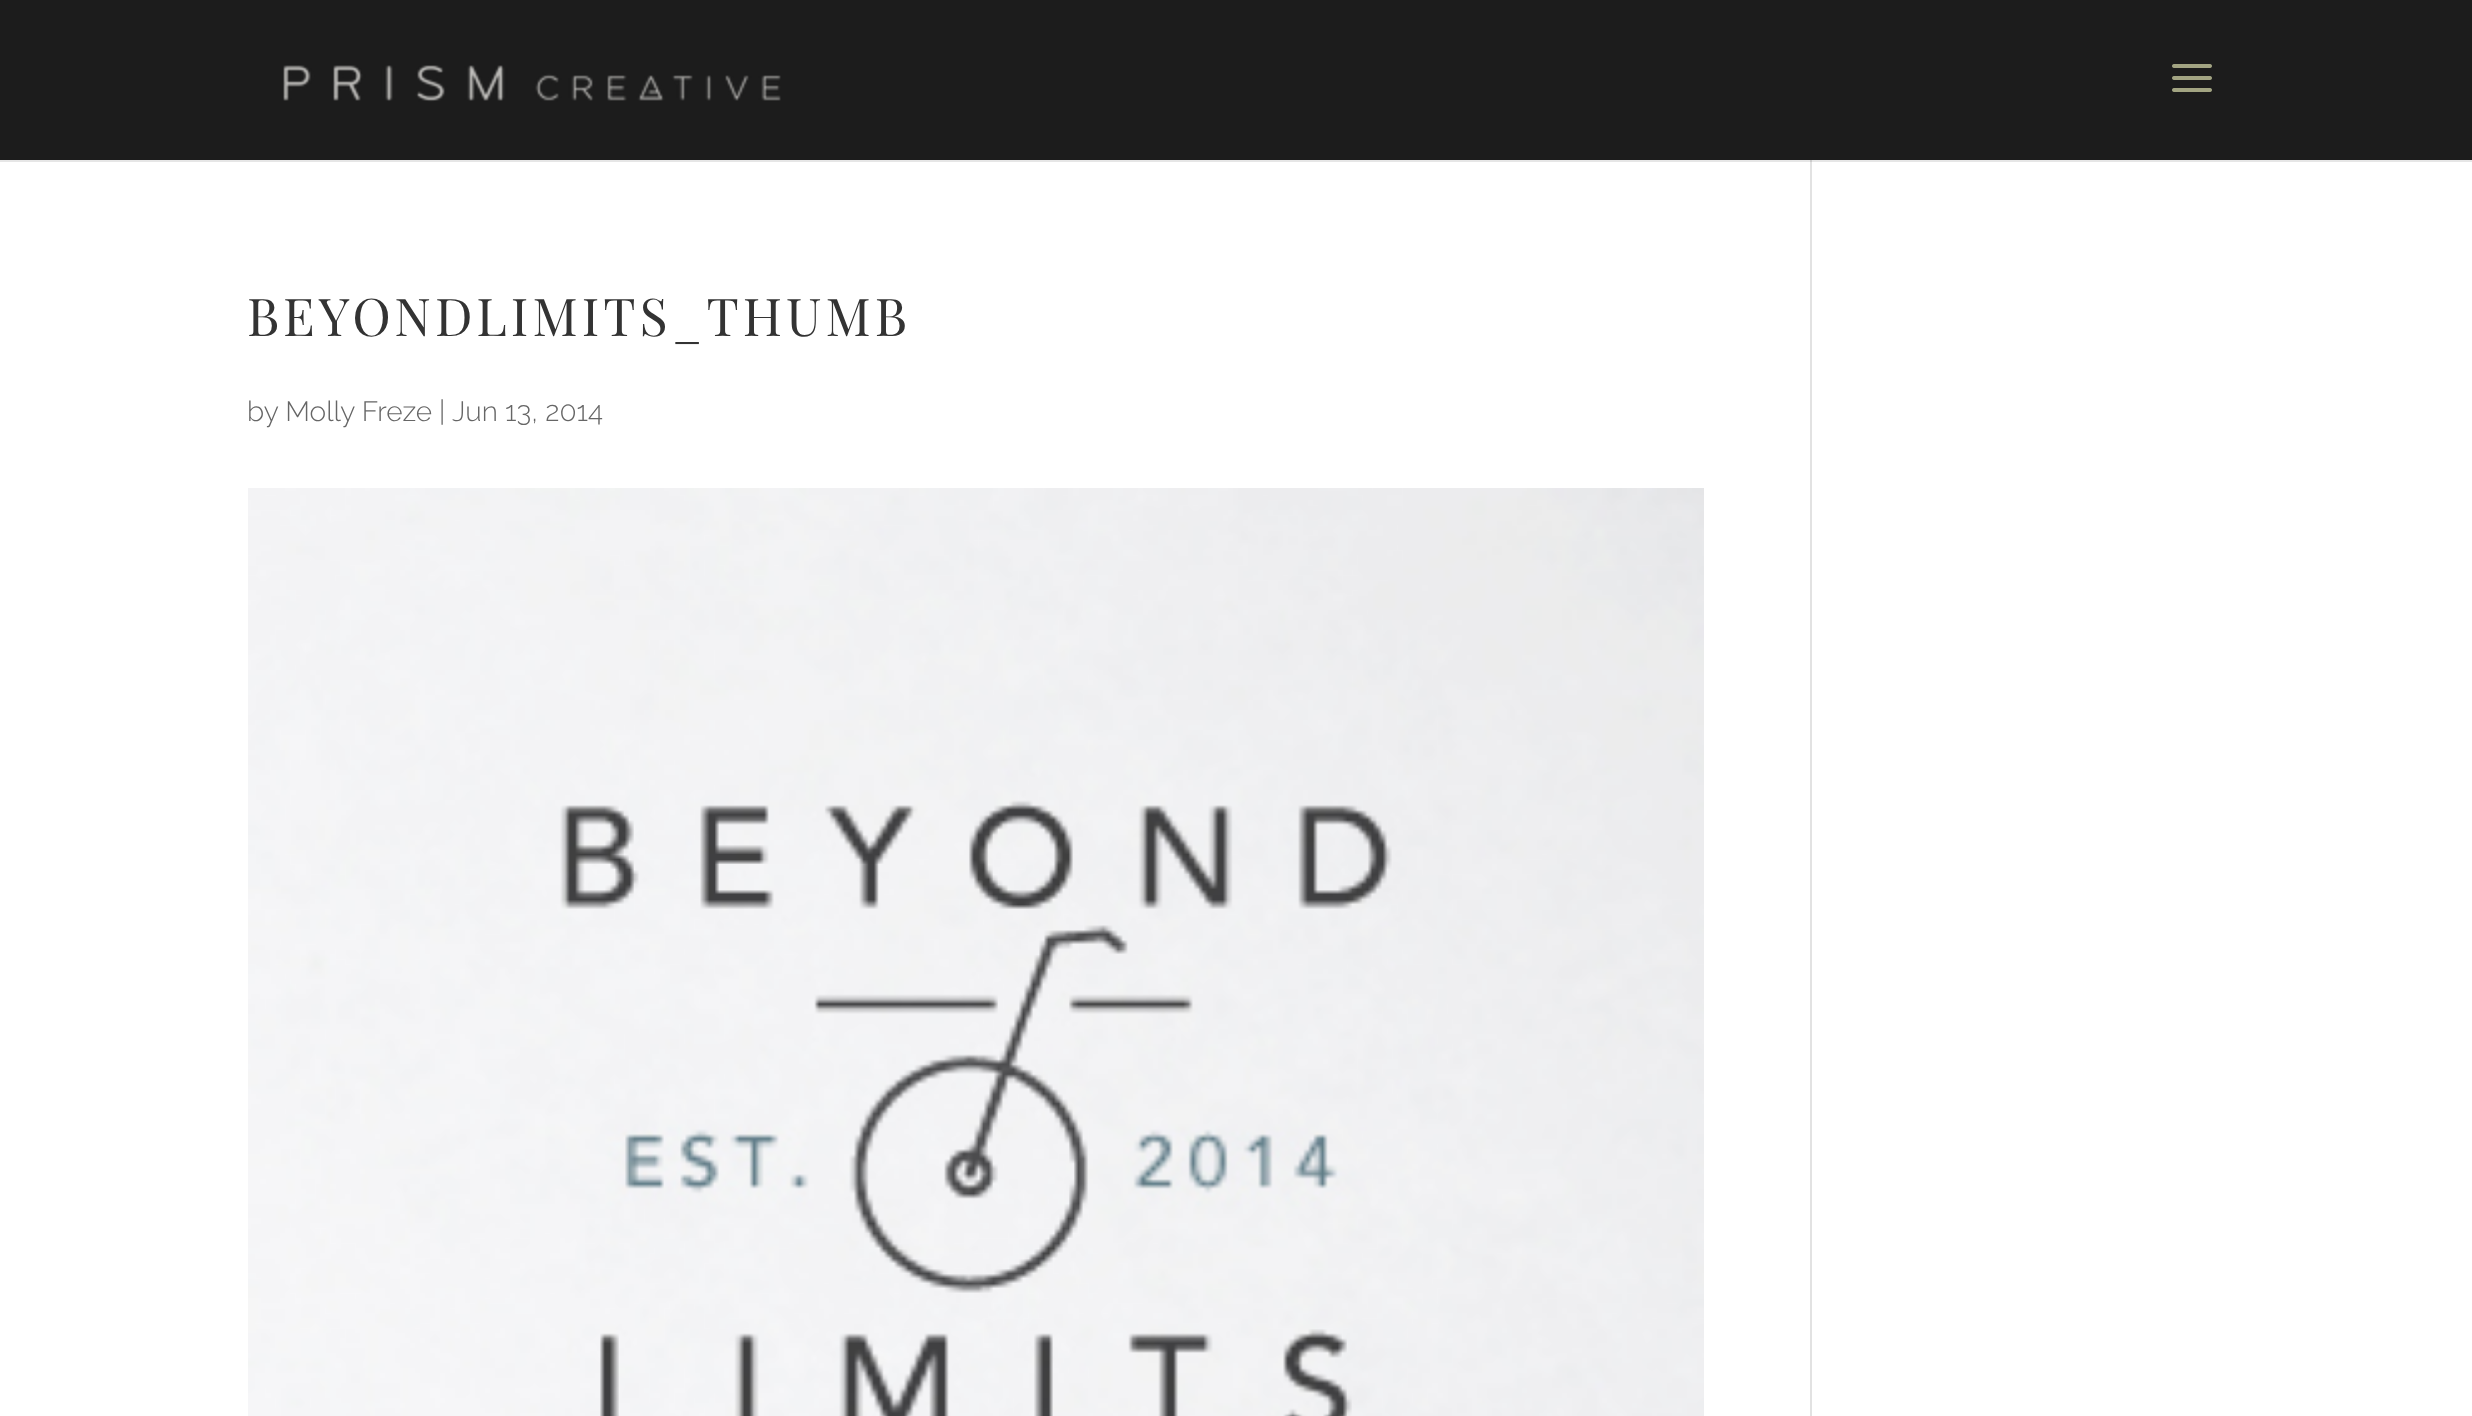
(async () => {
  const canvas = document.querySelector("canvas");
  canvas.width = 2472;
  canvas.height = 1416;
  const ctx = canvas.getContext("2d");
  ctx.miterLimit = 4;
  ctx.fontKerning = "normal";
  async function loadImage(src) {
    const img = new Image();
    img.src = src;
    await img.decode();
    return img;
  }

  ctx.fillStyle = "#ffffff";
  ctx.fillRect(0, 0, 2472, 1416);
  for (const [x, y, w, h, color] of [
    [0, 160, 2472, 2, "#e6e6e6"],
    [1810, 158, 2, 1258, "#e2e2e2"],
    [0, 0, 2472, 160, "#1c1c1c"],
  ]) {
    ctx.fillStyle = color;
    ctx.fillRect(x, y, w, h);
  }
  ctx.drawImage(await loadImage("img/1.png"), 283, 65, 498, 37);
  ctx.drawImage(await loadImage("img/2.png"), 2172, 64, 40, 28);
  ctx.drawImage(await loadImage("img/3.png"), 248, 488, 1456, 928);
  ctx.fillStyle = "#cbcbcb";
  ctx.fillRect(1810, 160, 2, 2);
  ctx.letterSpacing = "4px";
  ctx.font = "52px Playfair Display";
  ctx.fillStyle = "#333333";
  ctx.fillText("BEYONDLIMITS_THUMB", 247, 336);
  ctx.letterSpacing = "0px";
  ctx.font = "300 28px Raleway";
  ctx.fillStyle = "#666666";
  for (const [text, x, y] of [
    ["by Molly Freze", 247, 421],
    ["|", 439, 421],
    ["Jun 13, 2014", 452, 421],
  ]) {
    ctx.fillText(text, x, y);
  }
})();
